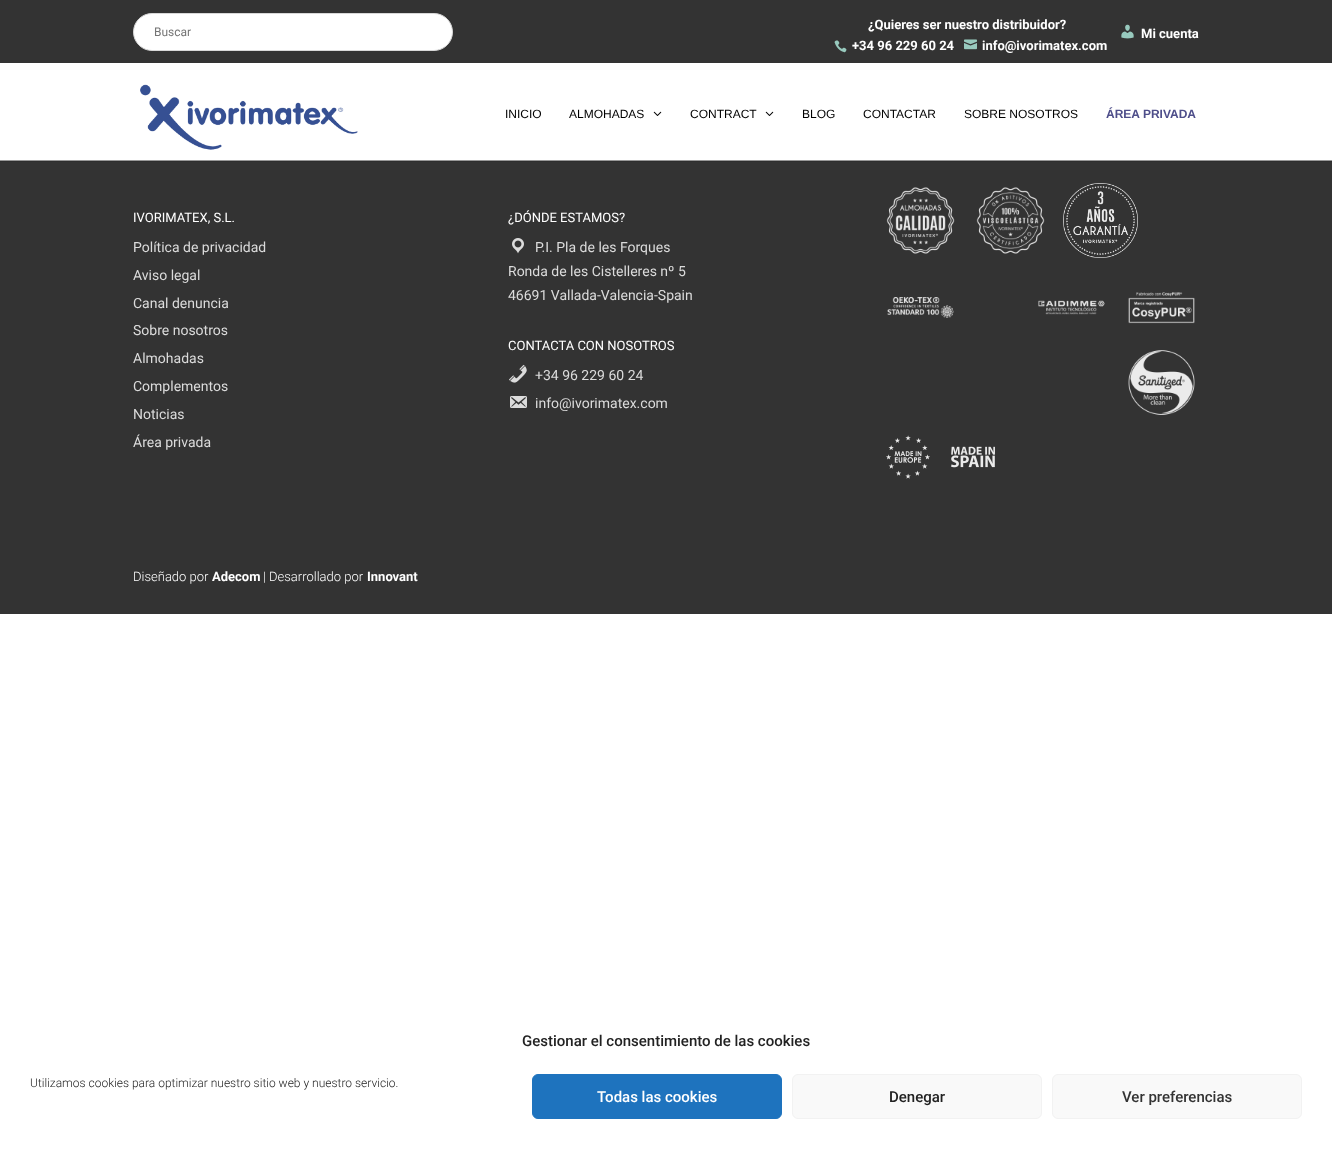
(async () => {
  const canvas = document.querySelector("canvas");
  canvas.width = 1332;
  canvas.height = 1164;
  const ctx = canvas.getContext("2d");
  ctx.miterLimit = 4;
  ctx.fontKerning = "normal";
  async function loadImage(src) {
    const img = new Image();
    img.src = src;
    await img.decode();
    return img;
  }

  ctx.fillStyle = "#ffffff";
  ctx.fillRect(0, 0, 1332, 1164);
  ctx.fillStyle = "#333333";
  ctx.fillRect(0, 0, 1332, 63);
  ctx.fillStyle = "#ffffff";
  ctx.beginPath();
  ctx.roundRect(133.5, 13.5, 319, 37, 18.5);
  ctx.fill();
  ctx.strokeStyle = "#d8d8d8";
  ctx.stroke();
  ctx.drawImage(await loadImage("img/1.png"), 834, 40, 13, 13);
  ctx.drawImage(await loadImage("img/2.png"), 964, 39, 13, 11);
  ctx.drawImage(await loadImage("img/3.png"), 1121, 24, 13, 15);
  ctx.fillStyle = "#2e2e2e";
  ctx.fillRect(0, 161, 1332, 1);
  ctx.fillStyle = "#999999";
  ctx.fillRect(0, 160, 1332, 1);
  ctx.drawImage(await loadImage("img/4.png"), 140, 84, 218, 66);
  ctx.drawImage(await loadImage("img/5.png"), 653, 111, 9, 5);
  ctx.drawImage(await loadImage("img/5.png"), 765, 111, 9, 5);
  ctx.fillStyle = "#333333";
  ctx.fillRect(0, 162, 1332, 452);
  ctx.drawImage(await loadImage("img/6.png"), 512, 238, 12, 16);
  ctx.drawImage(await loadImage("img/7.png"), 509, 364, 18, 19);
  ctx.drawImage(await loadImage("img/8.png"), 510, 396, 17, 12);
  ctx.drawImage(await loadImage("img/9.png"), 886, 187, 69, 67);
  ctx.drawImage(await loadImage("img/10.png"), 976, 187, 69, 67);
  ctx.drawImage(await loadImage("img/11.png"), 1063, 183, 75, 75);
  ctx.drawImage(await loadImage("img/12.png"), 887, 297, 67, 21);
  ctx.drawImage(await loadImage("img/13.png"), 1038, 300, 67, 15);
  ctx.drawImage(await loadImage("img/14.png"), 1128, 292, 67, 32);
  ctx.drawImage(await loadImage("img/15.png"), 1128, 350, 67, 65);
  ctx.drawImage(await loadImage("img/16.png"), 886, 435, 44, 44);
  ctx.drawImage(await loadImage("img/17.png"), 951, 446, 44, 22);
  ctx.fillStyle = "#1e73be";
  ctx.beginPath();
  ctx.roundRect(532.5, 1074.5, 249, 44, 5.5);
  ctx.fill();
  ctx.strokeStyle = "#1e73be";
  ctx.stroke();
  ctx.fillStyle = "#f9f9f9";
  ctx.beginPath();
  ctx.roundRect(792.5, 1074.5, 249, 44, 5.5);
  ctx.fill();
  ctx.strokeStyle = "#f2f2f2";
  ctx.stroke();
  ctx.beginPath();
  ctx.roundRect(1052.5, 1074.5, 249, 44, 5.5);
  ctx.fill();
  ctx.stroke();
  ctx.font = "12px Roboto";
  ctx.fillStyle = "#757575";
  ctx.fillText("Buscar", 154, 36);
  ctx.font = "bold 13px Roboto";
  ctx.fillStyle = "#ffffff";
  for (const [text, x, y] of [
    ["¿Quieres ser nuestro distribuidor?", 868, 29],
    ["+34 96 229 60 24", 852, 50],
    ["info@ivorimatex.com", 982, 50],
    ["Mi cuenta", 1141, 38],
  ]) {
    ctx.fillText(text, x, y);
  }
  ctx.font = "12px Liberation Sans";
  ctx.fillStyle = "#000000";
  for (const [text, x, y] of [
    ["INICIO", 505, 118],
    ["ALMOHADAS", 569, 118],
    ["CONTRACT", 690, 118],
    ["BLOG", 802, 118],
    ["CONTACTAR", 863, 118],
    ["SOBRE NOSOTROS", 964, 118],
  ]) {
    ctx.fillText(text, x, y);
  }
  ctx.font = "bold 12px Liberation Sans";
  ctx.fillStyle = "#4e4e8a";
  ctx.fillText("ÁREA PRIVADA", 1106, 118);
  ctx.font = "13px Roboto";
  ctx.fillStyle = "#ffffff";
  ctx.fillText("IVORIMATEX, S.L.", 133, 222);
  ctx.font = "14px Roboto";
  ctx.fillStyle = "#dbdbdb";
  for (const [text, x, y] of [
    ["Política de privacidad", 133, 252],
    ["Aviso legal", 133, 280],
    ["Canal denuncia", 133, 308],
    ["Sobre nosotros", 133, 335],
    ["Almohadas", 133, 363],
    ["Complementos", 133, 391],
    ["Noticias", 133, 419],
    ["Área privada", 133, 447],
  ]) {
    ctx.fillText(text, x, y);
  }
  ctx.font = "13px Roboto";
  ctx.fillStyle = "#ffffff";
  ctx.fillText("¿DÓNDE ESTAMOS?", 508, 222);
  ctx.font = "14px Roboto";
  ctx.fillStyle = "#dbdbdb";
  for (const [text, x, y] of [
    ["P.I. Pla de les Forques", 535, 252],
    ["Ronda de les Cistelleres nº 5", 508, 276],
    ["46691 Vallada-Valencia-Spain", 508, 300],
  ]) {
    ctx.fillText(text, x, y);
  }
  ctx.font = "13px Roboto";
  ctx.fillStyle = "#ffffff";
  ctx.fillText("CONTACTA CON NOSOTROS", 508, 350);
  ctx.font = "14px Roboto";
  ctx.fillStyle = "#dbdbdb";
  ctx.fillText("+34 96 229 60 24", 535, 380);
  ctx.fillText("info@ivorimatex.com", 535, 408);
  ctx.font = "300 13px Roboto";
  ctx.fillStyle = "#ffffff";
  ctx.fillText("Diseñado por", 133, 581);
  ctx.font = "bold 13px Roboto";
  ctx.fillText("Adecom", 212, 581);
  ctx.font = "300 13px Roboto";
  ctx.fillText("| Desarrollado por", 263, 581);
  ctx.font = "bold 13px Roboto";
  ctx.fillText("Innovant", 367, 581);
  ctx.font = "500 15px Roboto";
  ctx.fillStyle = "#222222";
  ctx.fillText("Gestionar el consentimiento de las cookies", 522, 1046);
  ctx.font = "300 12px Roboto";
  ctx.fillText("Utilizamos cookies para optimizar nuestro sitio web y nuestro servicio.", 30, 1087);
  ctx.font = "500 15px Roboto";
  ctx.fillStyle = "#ffffff";
  ctx.fillText("Todas las cookies", 597, 1102);
  ctx.fillStyle = "#222222";
  ctx.fillText("Denegar", 889, 1102);
  ctx.fillStyle = "#333333";
  ctx.fillText("Ver preferencias", 1122, 1102);
})();
